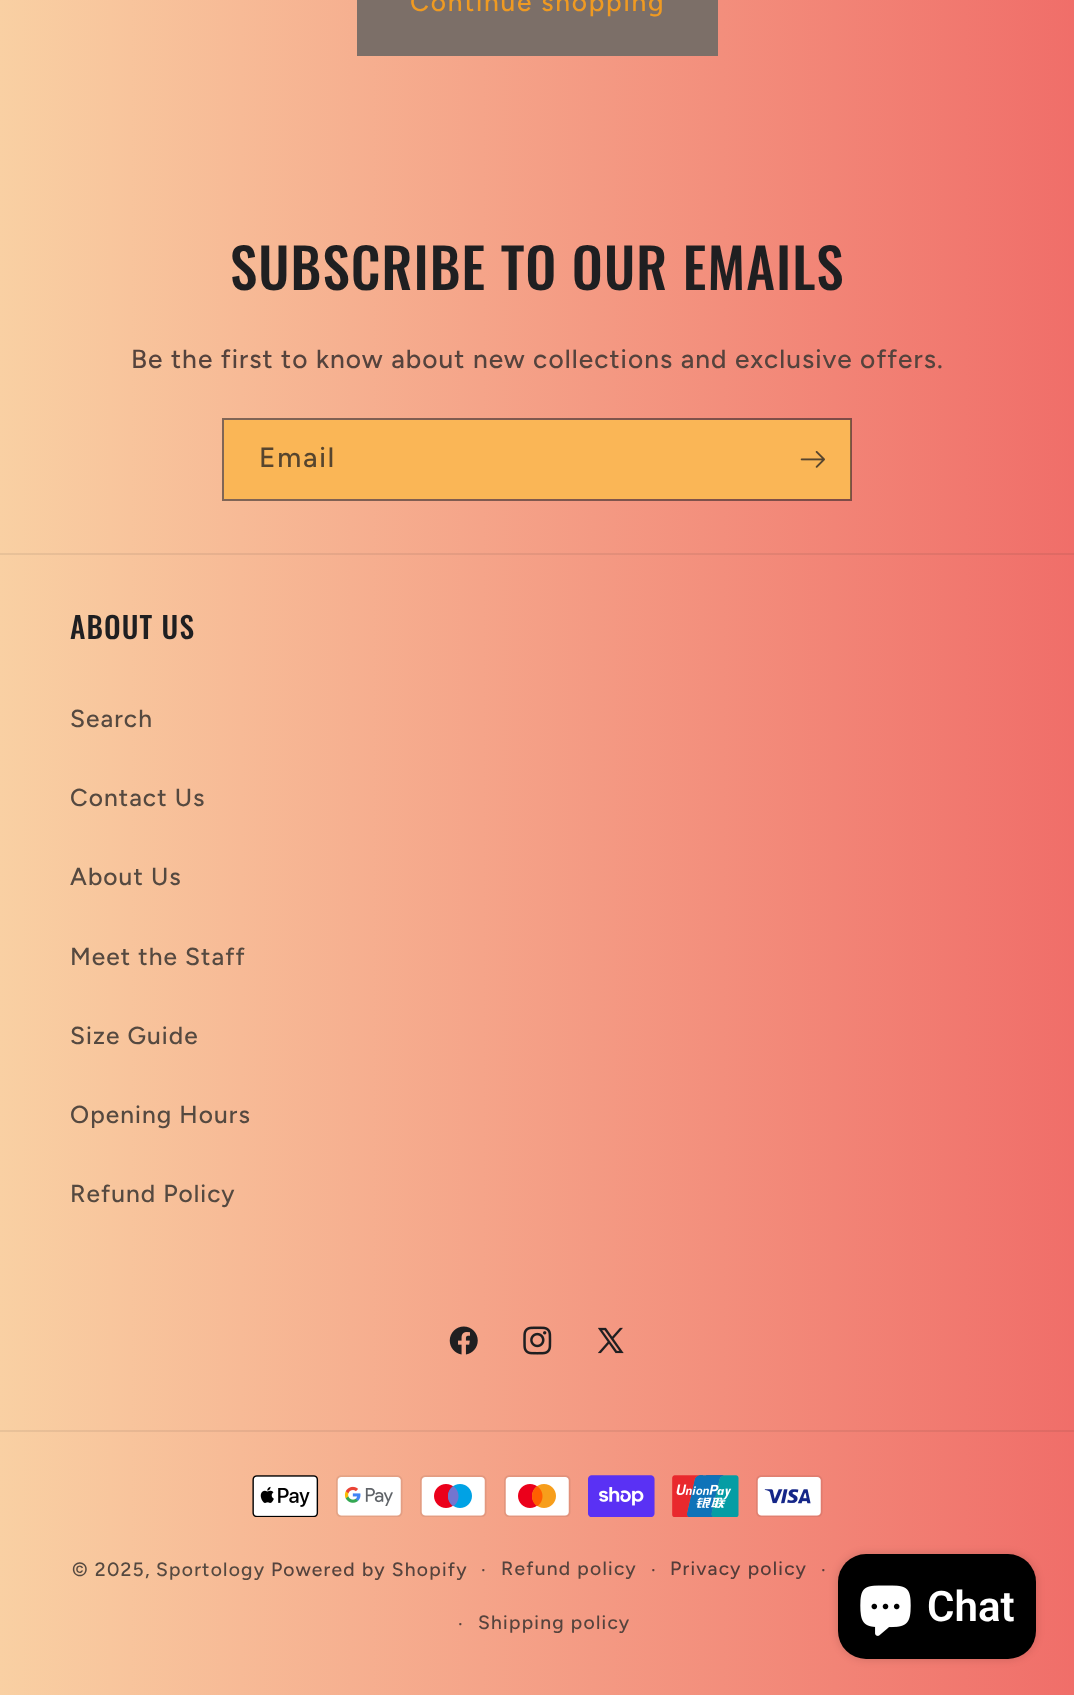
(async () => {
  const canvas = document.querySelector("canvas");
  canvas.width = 1074;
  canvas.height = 1695;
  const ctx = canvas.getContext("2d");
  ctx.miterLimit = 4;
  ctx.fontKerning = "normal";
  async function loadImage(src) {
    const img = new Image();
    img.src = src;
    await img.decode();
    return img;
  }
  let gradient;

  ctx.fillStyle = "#ffffff";
  ctx.fillRect(0, 0, 1074, 1695);
  gradient = ctx.createLinearGradient(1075, 848, 0, 848);
  gradient.addColorStop(0, "#f06e69");
  gradient.addColorStop(1, "#f9d0a3");
  ctx.fillStyle = gradient;
  ctx.fillRect(0, 0, 1074, 1695);
  gradient = ctx.createLinearGradient(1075, 848, 0, 848);
  gradient.addColorStop(0, "#df6863");
  gradient.addColorStop(1, "#e8c299");
  ctx.fillStyle = gradient;
  ctx.fillRect(0, 1430, 1074, 2);
  ctx.fillRect(0, 553, 1074, 2);
  ctx.fillStyle = "#7c6f68";
  ctx.fillRect(357, 0, 361, 56);
  ctx.fillStyle = "#fab656";
  ctx.fillRect(224, 420, 627, 79);
  ctx.strokeStyle = "rgba(31, 31, 33, 0.55)";
  ctx.lineWidth = 2;
  ctx.strokeRect(223, 419, 628, 81);
  ctx.drawImage(await loadImage("img/1.png"), 800, 451, 25, 17);
  ctx.drawImage(await loadImage("img/2.png"), 449, 1326, 29, 29);
  ctx.drawImage(await loadImage("img/3.png"), 523, 1326, 29, 29);
  ctx.drawImage(await loadImage("img/4.png"), 598, 1327, 26, 27);
  ctx.drawImage(await loadImage("img/5.png"), 252, 1475, 67, 42);
  ctx.drawImage(await loadImage("img/6.png"), 336, 1475, 67, 42);
  ctx.drawImage(await loadImage("img/7.png"), 420, 1475, 67, 42);
  ctx.drawImage(await loadImage("img/8.png"), 504, 1475, 67, 42);
  ctx.drawImage(await loadImage("img/9.png"), 588, 1475, 67, 42);
  ctx.drawImage(await loadImage("img/10.png"), 672, 1475, 67, 42);
  ctx.drawImage(await loadImage("img/11.png"), 756, 1475, 67, 42);
  ctx.fillStyle = "rgba(0, 0, 0, 0.15)";
  ctx.filter = "blur(4.5px)";
  ctx.beginPath();
  ctx.roundRect(838, 1554, 198, 105, 28);
  ctx.fill();
  ctx.filter = "none";
  ctx.fillStyle = "#000000";
  ctx.beginPath();
  ctx.roundRect(838, 1554, 198, 105, 28);
  ctx.fill();
  ctx.drawImage(await loadImage("img/12.png"), 860, 1585, 51, 51);
  ctx.letterSpacing = "1.75px";
  ctx.font = "500 26.25px Figtree";
  ctx.fillStyle = "#ef9a22";
  ctx.fillText("Continue shopping", 410, 11);
  ctx.letterSpacing = "1.1px";
  ctx.font = "500 55.1px Oswald";
  ctx.fillStyle = "#1f1f21";
  ctx.fillText("SUBSCRIBE TO OUR EMAILS", 230, 290);
  ctx.letterSpacing = "1.05px";
  ctx.font = "500 26.25px Figtree";
  ctx.fillStyle = "#55433d";
  ctx.fillText("Be the first to know about new collections and exclusive offers.", 131, 368);
  ctx.letterSpacing = "1.75px";
  ctx.font = "500 28px Figtree";
  ctx.fillStyle = "#56452e";
  ctx.fillText("Email", 259, 467);
  ctx.letterSpacing = "1.1px";
  ctx.font = "500 29.5px Oswald";
  ctx.fillStyle = "#1f1f21";
  ctx.fillText("ABOUT US", 70, 639);
  ctx.letterSpacing = "1.05px";
  ctx.font = "500 24.5px Figtree";
  ctx.fillStyle = "#554940";
  for (const [text, x, y] of [
    ["Search", 70, 727],
    ["Contact Us", 70, 806],
    ["About Us", 70, 885],
    ["Meet the Staff", 70, 965],
    ["Size Guide", 70, 1044],
    ["Opening Hours", 70, 1123],
    ["Refund Policy", 70, 1202],
  ]) {
    ctx.fillText(text, x, y);
  }
  ctx.letterSpacing = "1.25px";
  ctx.font = "500 19.25px Figtree";
  ctx.fillText("© 2025,", 72, 1576);
  ctx.fillText("Sportology", 156, 1576);
  ctx.fillStyle = "#55433d";
  ctx.fillText("Powered by Shopify", 271, 1576);
  ctx.font = "500 18px Figtree";
  ctx.fillText("·", 481, 1576);
  ctx.font = "500 19.25px Figtree";
  ctx.fillText("Refund policy", 501, 1575);
  ctx.font = "500 18px Figtree";
  ctx.fillStyle = "#543c39";
  ctx.fillText("·", 651, 1576);
  ctx.font = "500 19.25px Figtree";
  ctx.fillText("Privacy policy", 670, 1575);
  ctx.font = "500 18px Figtree";
  ctx.fillText("·", 821, 1576);
  ctx.fillStyle = "#55433d";
  ctx.fillText("·", 458, 1630);
  ctx.font = "500 19.25px Figtree";
  ctx.fillText("Shipping policy", 478, 1629);
  ctx.letterSpacing = "0px";
  ctx.font = "600 42px Roboto";
  ctx.fillStyle = "#ffffff";
  ctx.fillText("Chat", 927, 1621);
})();
